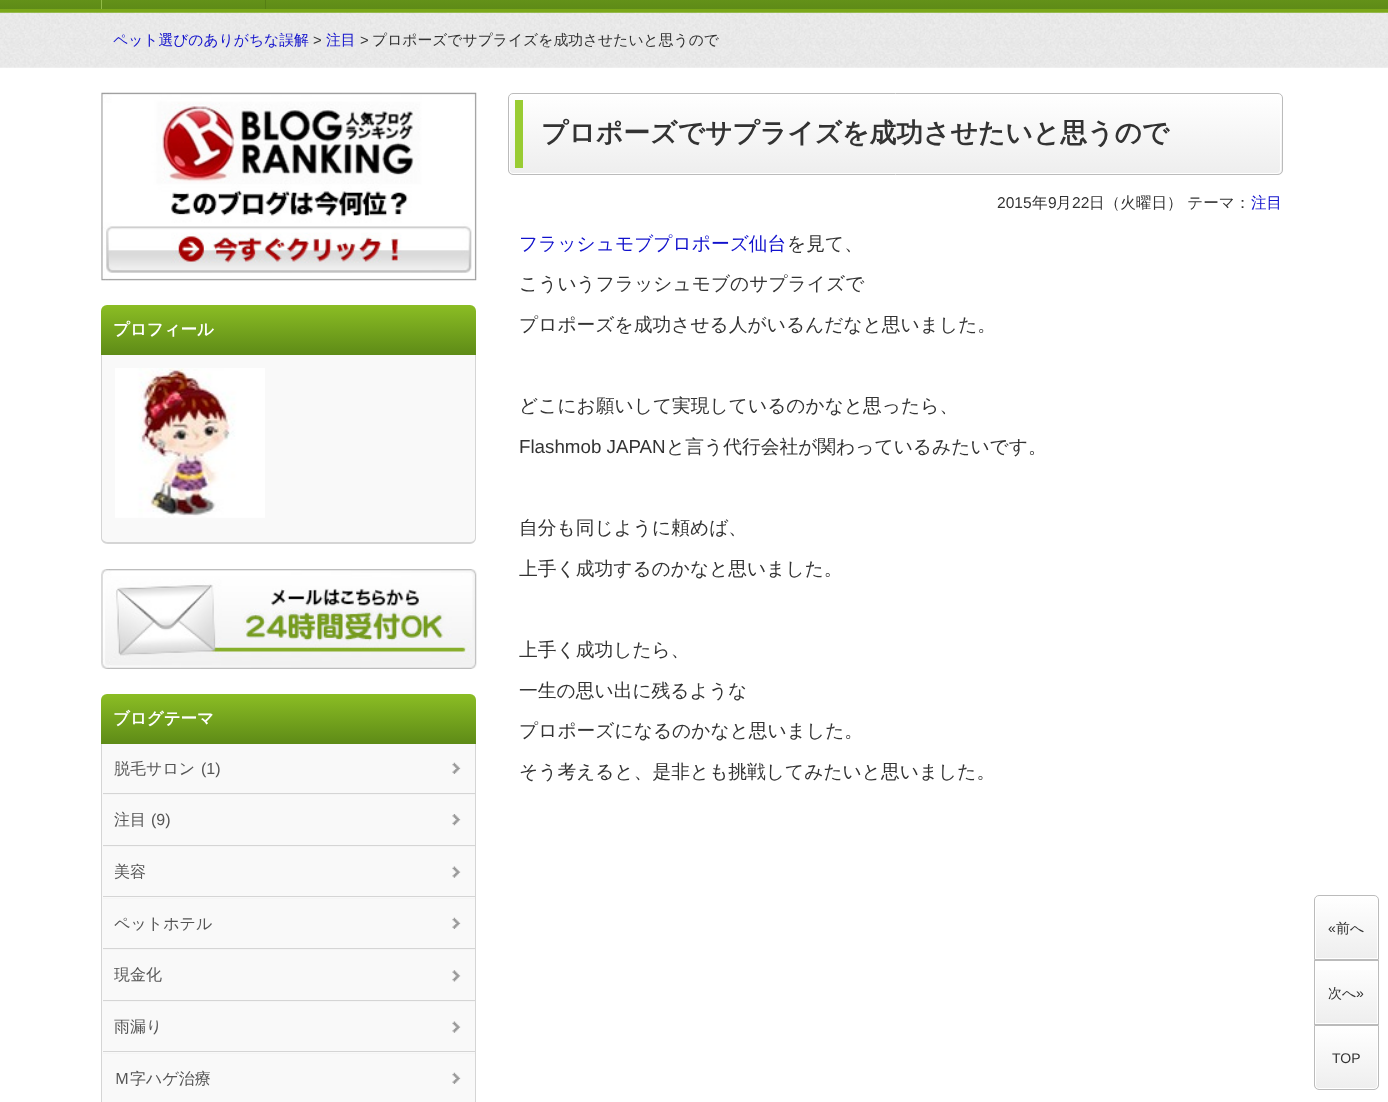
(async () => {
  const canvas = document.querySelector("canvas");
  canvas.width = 1388;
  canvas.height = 1102;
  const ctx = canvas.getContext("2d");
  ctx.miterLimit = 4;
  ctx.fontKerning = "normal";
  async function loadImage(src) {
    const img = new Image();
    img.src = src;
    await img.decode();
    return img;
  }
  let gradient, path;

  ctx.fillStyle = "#ffffff";
  ctx.fillRect(0, 0, 1388, 1102);
  gradient = ctx.createLinearGradient(694, -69, 694, 9);
  gradient.addColorStop(0, "#8bbd24");
  gradient.addColorStop(1, "#5e8b17");
  ctx.fillStyle = gradient;
  ctx.fillRect(0, 0, 1388, 9);
  for (const [x, y, w, h, color] of [
    [0, 9, 1388, 4, "#7ba81a"],
    [265, 0, 1, 9, "#567f14"],
    [101, 0, 1, 9, "#91bb47"],
  ]) {
    ctx.fillStyle = color;
    ctx.fillRect(x, y, w, h);
  }
  ctx.drawImage(await loadImage("img/1.png"), 0, 12, 1388, 56);
  ctx.drawImage(await loadImage("img/2.png"), 101, 92, 376, 189);
  gradient = ctx.createLinearGradient(289, 305, 289, 355);
  gradient.addColorStop(0, "#8bbd24");
  gradient.addColorStop(1, "#5e8b17");
  ctx.fillStyle = gradient;
  ctx.beginPath();
  ctx.roundRect(101, 305, 375, 50, [6, 6, 0, 0]);
  ctx.fill();
  ctx.fillStyle = "#f9f9f9";
  ctx.beginPath();
  ctx.roundRect(101, 355, 375, 189, [0, 0, 6, 6]);
  ctx.fill();
  ctx.fillStyle = "#d5d5d5";
  path = new Path2D("M101 355H476V538C476 541 473 544 470 544H108C104 544 101 541 101 538ZM102 355H475V538C475 540 473 542 470 542H108C105 542 102 540 102 538Z");
  ctx.fill(path, "evenodd");
  ctx.drawImage(await loadImage("img/3.png"), 115, 368, 150, 150);
  ctx.drawImage(await loadImage("img/4.png"), 101, 569, 376, 100);
  gradient = ctx.createLinearGradient(289, 694, 289, 744);
  gradient.addColorStop(0, "#8bbd24");
  gradient.addColorStop(1, "#5e8b17");
  ctx.fillStyle = gradient;
  ctx.beginPath();
  ctx.roundRect(101, 694, 375, 50, [6, 6, 0, 0]);
  ctx.fill();
  ctx.fillStyle = "#f9f9f9";
  ctx.fillRect(102, 744, 373, 358);
  ctx.fillStyle = "#d5d5d5";
  path = new Path2D("M101 744H476V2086C476 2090 473 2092 470 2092H108C104 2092 101 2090 101 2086ZM102 744H475V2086C475 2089 473 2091 470 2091H108C105 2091 102 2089 102 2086Z");
  ctx.fill(path, "evenodd");
  ctx.drawImage(await loadImage("img/5.png"), 452, 762, 9, 12);
  ctx.fillRect(103, 793, 372, 1);
  ctx.drawImage(await loadImage("img/6.png"), 452, 814, 9, 12);
  ctx.fillStyle = "#f5f5f5";
  ctx.fillRect(103, 794, 372, 1);
  ctx.fillStyle = "#d5d5d5";
  ctx.fillRect(103, 845, 372, 1);
  ctx.drawImage(await loadImage("img/7.png"), 452, 866, 9, 12);
  ctx.fillStyle = "#f5f5f5";
  ctx.fillRect(103, 846, 372, 1);
  ctx.fillStyle = "#d5d5d5";
  ctx.fillRect(103, 896, 372, 1);
  ctx.drawImage(await loadImage("img/5.png"), 452, 917, 9, 12);
  ctx.fillStyle = "#f5f5f5";
  ctx.fillRect(103, 898, 372, 1);
  ctx.fillStyle = "#d5d5d5";
  ctx.fillRect(103, 948, 372, 1);
  ctx.drawImage(await loadImage("img/8.png"), 452, 970, 9, 12);
  ctx.fillStyle = "#f5f5f5";
  ctx.fillRect(103, 949, 372, 1);
  ctx.fillStyle = "#d5d5d5";
  ctx.fillRect(103, 1000, 372, 1);
  ctx.drawImage(await loadImage("img/7.png"), 452, 1021, 9, 12);
  ctx.fillStyle = "#f5f5f5";
  ctx.fillRect(103, 1001, 372, 1);
  ctx.fillStyle = "#d5d5d5";
  ctx.fillRect(103, 1051, 372, 1);
  ctx.drawImage(await loadImage("img/5.png"), 452, 1072, 9, 12);
  ctx.fillStyle = "#f5f5f5";
  ctx.fillRect(103, 1053, 372, 1);
  ctx.save();
  ctx.beginPath();
  ctx.roundRect(508, 93, 775, 82, 5);
  ctx.clip();
  gradient = ctx.createLinearGradient(895, 94, 895, 174);
  gradient.addColorStop(0, "#ffffff");
  gradient.addColorStop(1, "#eeeeee");
  ctx.fillStyle = gradient;
  ctx.fillRect(508, 94, 775, 80);
  ctx.restore();
  ctx.beginPath();
  ctx.roundRect(509.5, 94.5, 771, 79, 3.5);
  ctx.strokeStyle = "#ffffff";
  ctx.stroke();
  ctx.beginPath();
  ctx.roundRect(508.5, 93.5, 774, 81, 4.5);
  ctx.strokeStyle = "#bbbbbb";
  ctx.stroke();
  ctx.fillStyle = "#99cc33";
  ctx.fillRect(515, 100, 8, 68);
  ctx.save();
  ctx.beginPath();
  ctx.roundRect(1314, 895, 65, 65, [5, 5, 0, 0]);
  ctx.clip();
  gradient = ctx.createLinearGradient(1346, 896, 1346, 959);
  gradient.addColorStop(0, "#ffffff");
  gradient.addColorStop(1, "#eeeeee");
  ctx.fillStyle = gradient;
  ctx.fillRect(1314, 896, 65, 62);
  ctx.restore();
  ctx.beginPath();
  ctx.roundRect(1315.5, 896.5, 62, 62, [3.5, 3.5, 0, 0]);
  ctx.strokeStyle = "#ffffff";
  ctx.stroke();
  ctx.beginPath();
  ctx.roundRect(1314.5, 895.5, 64, 64, [4.5, 4.5, 0, 0]);
  ctx.strokeStyle = "#bbbbbb";
  ctx.stroke();
  gradient = ctx.createLinearGradient(1346, 961, 1346, 1024);
  gradient.addColorStop(0, "#ffffff");
  gradient.addColorStop(1, "#eeeeee");
  ctx.fillStyle = gradient;
  ctx.fillRect(1316, 970, 61, 53);
  ctx.strokeRect(1314.5, 960.5, 64, 64);
  ctx.save();
  ctx.beginPath();
  ctx.roundRect(1314, 1025, 65, 65, [0, 0, 5, 5]);
  ctx.clip();
  gradient = ctx.createLinearGradient(1346, 1026, 1346, 1089);
  gradient.addColorStop(0, "#ffffff");
  gradient.addColorStop(1, "#eeeeee");
  ctx.fillStyle = gradient;
  ctx.fillRect(1314, 1027, 65, 62);
  ctx.restore();
  ctx.beginPath();
  ctx.roundRect(1315.5, 1026.5, 62, 62, [0, 0, 3.5, 3.5]);
  ctx.strokeStyle = "#ffffff";
  ctx.stroke();
  ctx.beginPath();
  ctx.roundRect(1314.5, 1025.5, 64, 64, [0, 0, 4.5, 4.5]);
  ctx.strokeStyle = "#bbbbbb";
  ctx.stroke();
  ctx.font = "500 14.8px WenQuanYi Zen Hei";
  ctx.fillStyle = "#1111cc";
  ctx.fillText("ペット選びのありがちな誤解", 113, 45);
  ctx.font = "14.8px Liberation Sans";
  ctx.fillStyle = "#333333";
  ctx.fillText(">", 313, 45);
  ctx.font = "500 14.8px WenQuanYi Zen Hei";
  ctx.fillStyle = "#1111cc";
  ctx.fillText("注目", 326, 45);
  ctx.font = "14.8px Liberation Sans";
  ctx.fillStyle = "#333333";
  ctx.fillText(">", 360, 45);
  ctx.font = "500 14.8px WenQuanYi Zen Hei";
  ctx.fillText("プロポーズでサプライズを成功させたいと思うので", 372, 45);
  ctx.font = "bold 16.5px WenQuanYi Zen Hei";
  ctx.fillStyle = "#ffffff";
  ctx.fillText("プロフィール", 113, 335);
  ctx.fillText("ブログテーマ", 113, 724);
  ctx.font = "500 16px WenQuanYi Zen Hei";
  ctx.fillStyle = "#555555";
  ctx.fillText("脱毛サロン", 114, 774);
  ctx.font = "16px Liberation Sans";
  ctx.fillText("(1)", 201, 774);
  ctx.font = "500 16px WenQuanYi Zen Hei";
  ctx.fillText("注目", 114, 825);
  ctx.font = "16px Liberation Sans";
  ctx.fillText("(9)", 151, 825);
  ctx.font = "500 16px WenQuanYi Zen Hei";
  for (const [text, x, y] of [
    ["美容", 114, 877],
    ["ペットホテル", 114, 929],
    ["現金化", 114, 980],
    ["雨漏り", 114, 1032],
    ["Ｍ字ハゲ治療", 114, 1084],
  ]) {
    ctx.fillText(text, x, y);
  }
  ctx.font = "bold 26.8px WenQuanYi Zen Hei";
  ctx.fillStyle = "#333333";
  ctx.fillText("プロポーズでサプライズを成功させたいと思うので", 541, 142);
  ctx.font = "15.6px Liberation Sans";
  ctx.fillText("2015", 997, 208);
  ctx.font = "500 15.6px WenQuanYi Zen Hei";
  ctx.fillText("年", 1032, 208);
  ctx.font = "15.6px Liberation Sans";
  ctx.fillText("9", 1048, 208);
  ctx.font = "500 15.6px WenQuanYi Zen Hei";
  ctx.fillText("月", 1056, 208);
  ctx.font = "15.6px Liberation Sans";
  ctx.fillText("22", 1072, 208);
  ctx.font = "500 15.6px WenQuanYi Zen Hei";
  ctx.fillText("日（火曜日） テーマ：", 1089, 208);
  ctx.fillStyle = "#1111cc";
  ctx.fillText("注目", 1251, 208);
  ctx.font = "500 18.75px WenQuanYi Zen Hei";
  ctx.fillText("フラッシュモブプロポーズ仙台", 519, 250);
  ctx.fillStyle = "#333333";
  for (const [text, x, y] of [
    ["を見て、", 787, 250],
    ["こういうフラッシュモブのサプライズで", 519, 290],
    ["プロポーズを成功させる人がいるんだなと思いました。", 519, 331],
    ["どこにお願いして実現しているのかなと思ったら、", 519, 412],
  ]) {
    ctx.fillText(text, x, y);
  }
  ctx.font = "18.75px Liberation Sans";
  ctx.fillText("Flashmob JAPAN", 519, 453);
  ctx.font = "500 18.75px WenQuanYi Zen Hei";
  for (const [text, x, y] of [
    ["と言う代行会社が関わっているみたいです。", 666, 453],
    ["自分も同じように頼めば、", 519, 534],
    ["上手く成功するのかなと思いました。", 519, 575],
    ["上手く成功したら、", 519, 656],
    ["一生の思い出に残るような", 519, 697],
    ["プロポーズになるのかなと思いました。", 519, 737],
    ["そう考えると、是非とも挑戦してみたいと思いました。", 519, 778],
  ]) {
    ctx.fillText(text, x, y);
  }
  ctx.font = "14px Liberation Sans";
  ctx.fillText("«", 1328, 933);
  ctx.font = "500 14px WenQuanYi Zen Hei";
  ctx.fillText("前へ", 1336, 933);
  ctx.fillText("次へ", 1328, 998);
  ctx.font = "14px Liberation Sans";
  ctx.fillText("»", 1356, 998);
  ctx.fillText("TOP", 1332, 1063);
})();
